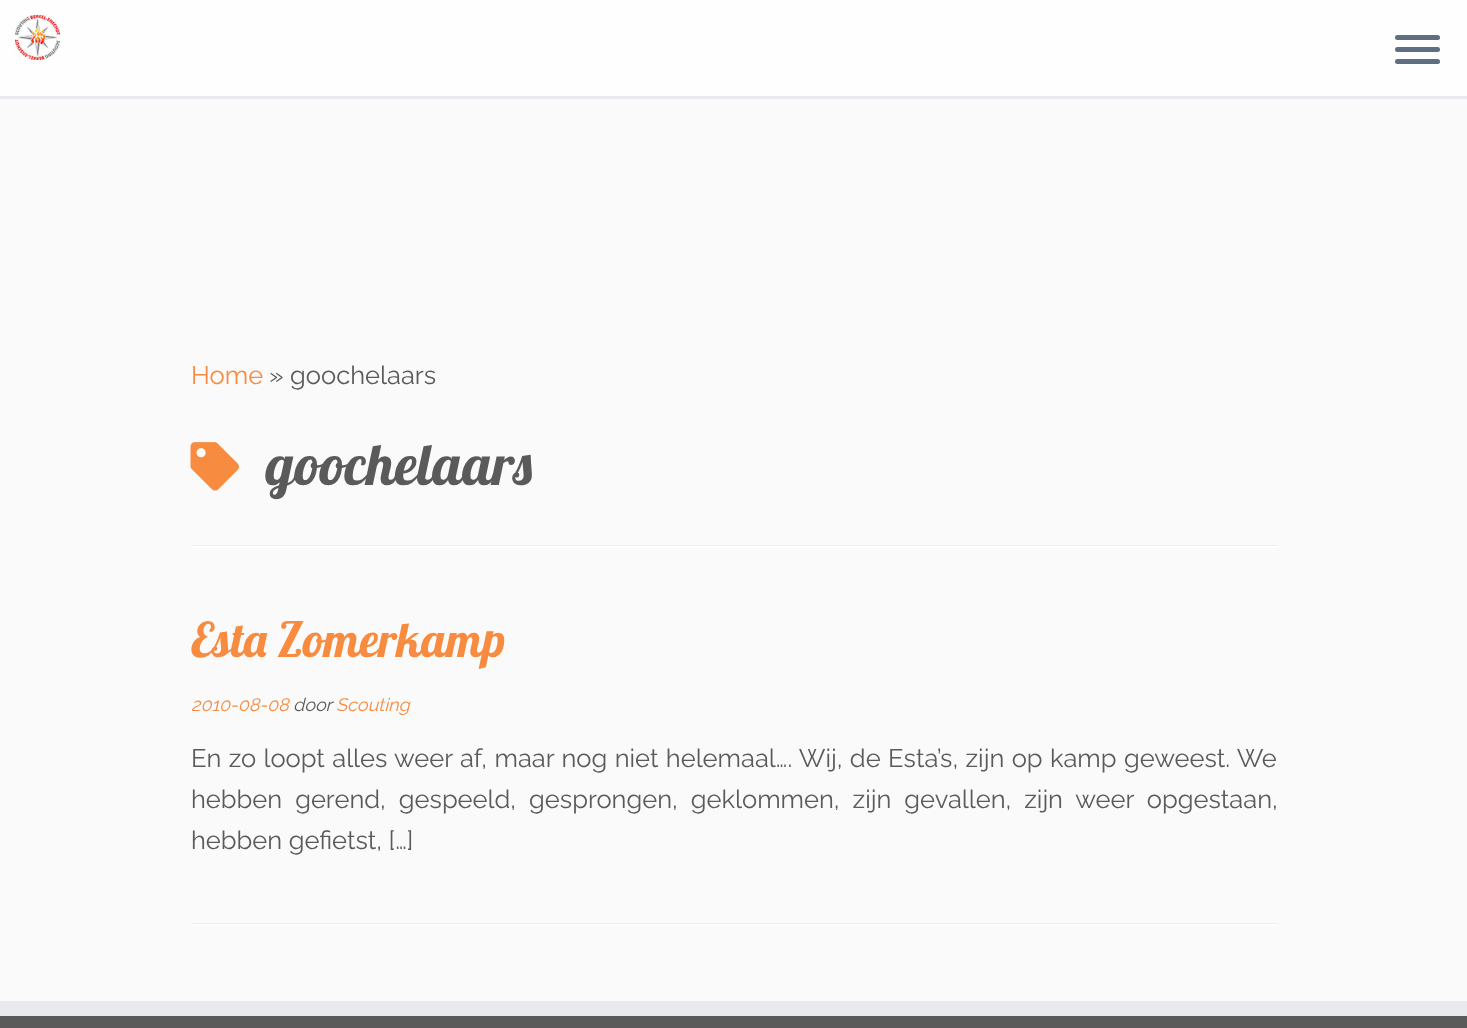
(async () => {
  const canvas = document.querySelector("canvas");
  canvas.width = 1467;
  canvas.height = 1028;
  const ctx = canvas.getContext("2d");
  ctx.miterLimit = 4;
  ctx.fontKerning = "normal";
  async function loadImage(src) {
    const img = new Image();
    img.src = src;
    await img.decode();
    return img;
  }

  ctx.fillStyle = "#fafafa";
  ctx.fillRect(0, 0, 1467, 1028);
  ctx.fillStyle = "#fefefe";
  ctx.fillRect(0, 0, 1467, 96);
  ctx.fillStyle = "#e9eaee";
  ctx.fillRect(0, 96, 1467, 3);
  ctx.drawImage(await loadImage("img/1.png"), 15, 15, 45, 45);
  ctx.fillStyle = "#5f6f81";
  ctx.beginPath();
  ctx.roundRect(1395, 35, 45, 5, 2.5);
  ctx.fill();
  ctx.beginPath();
  ctx.roundRect(1395, 47, 45, 5, 2.5);
  ctx.fill();
  ctx.beginPath();
  ctx.roundRect(1395, 59, 45, 5, 2.5);
  ctx.fill();
  ctx.drawImage(await loadImage("img/2.png"), 190, 442, 49, 49);
  for (const [x, y, w, h, color] of [
    [191, 545, 1086, 1, "#eeeeee"],
    [191, 546, 1086, 2, "#ffffff"],
    [191, 923, 1086, 1, "#eeeeee"],
    [191, 924, 1086, 2, "#ffffff"],
    [0, 1016, 1467, 12, "#5a5a5a"],
    [0, 1001, 1467, 15, "#e9eaee"],
  ]) {
    ctx.fillStyle = color;
    ctx.fillRect(x, y, w, h);
  }
  ctx.font = "100 25.5px Raleway";
  ctx.fillStyle = "#f78c40";
  ctx.fillText("Home", 191, 384);
  ctx.fillStyle = "#5a5a5a";
  ctx.fillText("» goochelaars", 269, 384);
  ctx.font = "57px Lobster";
  ctx.fillText("goochelaars", 266, 485);
  ctx.font = "48px Lobster";
  ctx.fillStyle = "#f78c40";
  ctx.fillText("Esta Zomerkamp", 191, 657);
  ctx.font = "italic 100 18px Raleway";
  ctx.fillText("2010-08-08", 191, 711);
  ctx.fillStyle = "#5a5a5a";
  ctx.fillText("door", 293, 711);
  ctx.fillStyle = "#f78c40";
  ctx.fillText("Scouting", 336, 711);
  ctx.wordSpacing = "0.9px";
  ctx.font = "100 25.5px Raleway";
  ctx.fillStyle = "#5a5a5a";
  ctx.fillText("En zo loopt alles weer af, maar nog niet helemaal…. Wij, de Esta’s, zijn op kamp geweest. We", 191, 767);
  ctx.wordSpacing = "6.5px";
  ctx.fillText("hebben gerend, gespeeld, gesprongen, geklommen, zijn gevallen, zijn weer opgestaan,", 191, 808);
  ctx.wordSpacing = "0px";
  ctx.fillText("hebben gefietst, […]", 191, 849);
})();
